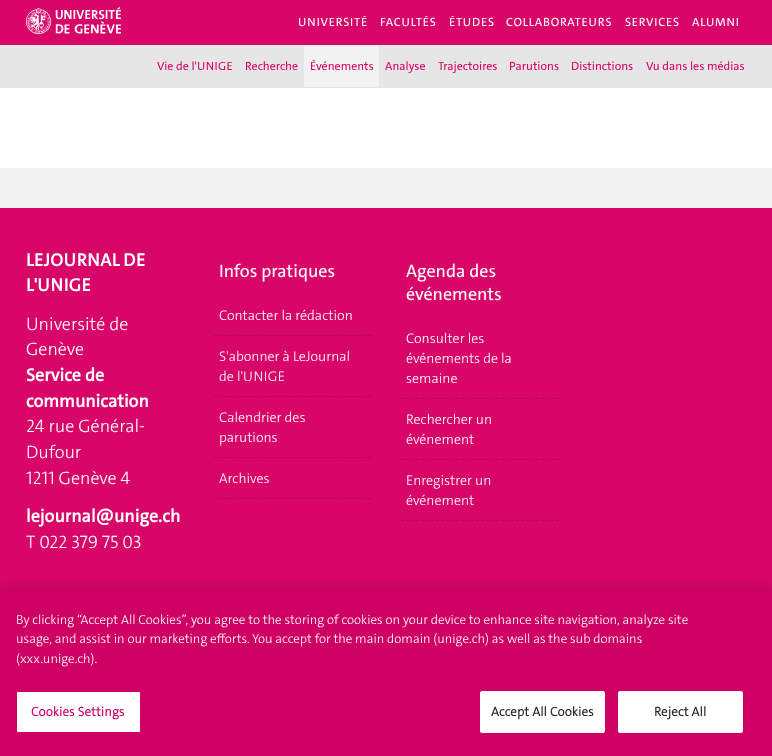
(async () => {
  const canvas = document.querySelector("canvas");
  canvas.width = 772;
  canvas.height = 756;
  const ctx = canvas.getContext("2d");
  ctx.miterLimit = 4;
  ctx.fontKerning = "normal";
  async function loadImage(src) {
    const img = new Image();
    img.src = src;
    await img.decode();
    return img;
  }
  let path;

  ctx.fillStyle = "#ffffff";
  ctx.fillRect(0, 0, 772, 756);
  ctx.fillStyle = "#d80669";
  ctx.fillRect(0, 0, 772, 45);
  ctx.drawImage(await loadImage("img/1.png"), 26, 7, 95, 27);
  for (const [x, y, w, h, color] of [
    [0, 45, 772, 43, "#e6e6e6"],
    [304, 46, 75, 41, "#f2f2f2"],
    [0, 168, 772, 40, "#f2f2f2"],
    [0, 208, 772, 382, "#d80669"],
  ]) {
    ctx.fillStyle = color;
    ctx.fillRect(x, y, w, h);
  }
  path = new Path2D("M214 335.5H371");
  ctx.strokeStyle = "#b80559";
  ctx.setLineDash([3, 1.97]);
  ctx.stroke(path);
  path = new Path2D("M214 396.5H371");
  ctx.stroke(path);
  path = new Path2D("M214 457.5H371");
  ctx.stroke(path);
  path = new Path2D("M214 498.5H371");
  ctx.stroke(path);
  path = new Path2D("M401 398.5H559");
  ctx.setLineDash([3, 2]);
  ctx.stroke(path);
  path = new Path2D("M401 459.5H559");
  ctx.stroke(path);
  path = new Path2D("M401 520.5H559");
  ctx.stroke(path);
  ctx.fillStyle = "rgba(0, 0, 0, 0.2)";
  ctx.filter = "blur(9px)";
  ctx.beginPath();
  ctx.rect(0, 590, 772, 166);
  ctx.fill();
  ctx.filter = "none";
  ctx.fillStyle = "#cf0063";
  ctx.fillRect(0, 590, 772, 166);
  ctx.fillStyle = "#ffffff";
  ctx.beginPath();
  ctx.roundRect(16.5, 691.5, 124, 41, 1.5);
  ctx.fill();
  ctx.strokeStyle = "#cf0063";
  ctx.setLineDash([]);
  ctx.stroke();
  ctx.beginPath();
  ctx.roundRect(480.5, 691.5, 124, 41, 1.5);
  ctx.fill();
  ctx.strokeStyle = "#ffffff";
  ctx.stroke();
  ctx.beginPath();
  ctx.roundRect(618.5, 691.5, 124, 41, 1.5);
  ctx.fill();
  ctx.stroke();
  ctx.letterSpacing = "0.5px";
  ctx.font = "12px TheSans";
  for (const [text, x, y] of [
    ["UNIVERSITÉ", 298, 26],
    ["FACULTÉS", 380, 26],
    ["ÉTUDES", 449, 26],
    ["COLLABORATEURS", 506, 26],
    ["SERVICES", 625, 26],
    ["ALUMNI", 692, 26],
  ]) {
    ctx.fillText(text, x, y);
  }
  ctx.letterSpacing = "0px";
  ctx.fillStyle = "#d80669";
  for (const [text, x, y] of [
    ["Vie de l'UNIGE", 157, 70],
    ["Recherche", 245, 70],
    ["Événements", 310, 70],
    ["Analyse", 385, 70],
    ["Trajectoires", 438, 70],
    ["Parutions", 509, 70],
    ["Distinctions", 571, 70],
    ["Vu dans les médias", 646, 70],
  ]) {
    ctx.fillText(text, x, y);
  }
  ctx.font = "bold 18px TheSans";
  ctx.fillStyle = "#ffffff";
  ctx.fillText("LEJOURNAL DE", 26, 266);
  ctx.fillText("L'UNIGE", 26, 291);
  ctx.font = "300 18px TheSans";
  ctx.fillText("Université de", 26, 330);
  ctx.fillText("Genève", 26, 355);
  ctx.font = "bold 18px TheSans";
  ctx.fillText("Service de", 26, 381);
  ctx.fillText("communication", 26, 407);
  ctx.font = "300 18px TheSans";
  for (const [text, x, y] of [
    ["24 rue Général-", 26, 432],
    ["Dufour", 26, 458],
    ["1211 Genève 4", 26, 484],
  ]) {
    ctx.fillText(text, x, y);
  }
  ctx.font = "bold 18px TheSans";
  ctx.fillText("lejournal@unige.ch", 26, 522);
  ctx.font = "300 18px TheSans";
  ctx.fillText("T 022 379 75 03", 26, 548);
  ctx.font = "18px TheSans";
  ctx.fillText("Infos pratiques", 219, 277);
  ctx.font = "300 14px TheSans";
  for (const [text, x, y] of [
    ["Contacter la rédaction", 219, 320],
    ["S'abonner à LeJournal", 219, 361],
    ["de l'UNIGE", 219, 381],
    ["Calendrier des", 219, 422],
    ["parutions", 219, 442],
    ["Archives", 219, 483],
  ]) {
    ctx.fillText(text, x, y);
  }
  ctx.font = "18px TheSans";
  ctx.fillText("Agenda des", 406, 277);
  ctx.fillText("événements", 406, 300);
  ctx.font = "300 14px TheSans";
  for (const [text, x, y] of [
    ["Consulter les", 406, 343],
    ["événements de la", 406, 363],
    ["semaine", 406, 383],
    ["Rechercher un", 406, 424],
    ["événement", 406, 444],
    ["Enregistrer un", 406, 485],
    ["événement", 406, 505],
  ]) {
    ctx.fillText(text, x, y);
  }
  ctx.font = "300 13px TheSans";
  for (const [text, x, y] of [
    ["By clicking “Accept All Cookies”, you agree to the storing of cookies on your device to enhance site navigation, analyze site", 16, 624],
    ["usage, and assist in our marketing efforts. You accept for the main domain (unige.ch) as well as the sub domains", 16, 643],
    ["(xxx.unige.ch).", 16, 663],
  ]) {
    ctx.fillText(text, x, y);
  }
  ctx.letterSpacing = "0.1px";
  ctx.font = "bold 13px 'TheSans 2'";
  ctx.fillStyle = "#cf0063";
  ctx.fillText("Cookies Settings", 31, 716);
  ctx.fillStyle = "#262626";
  ctx.fillText("Accept All Cookies", 491, 716);
  ctx.fillText("Reject All", 654, 716);
})();
